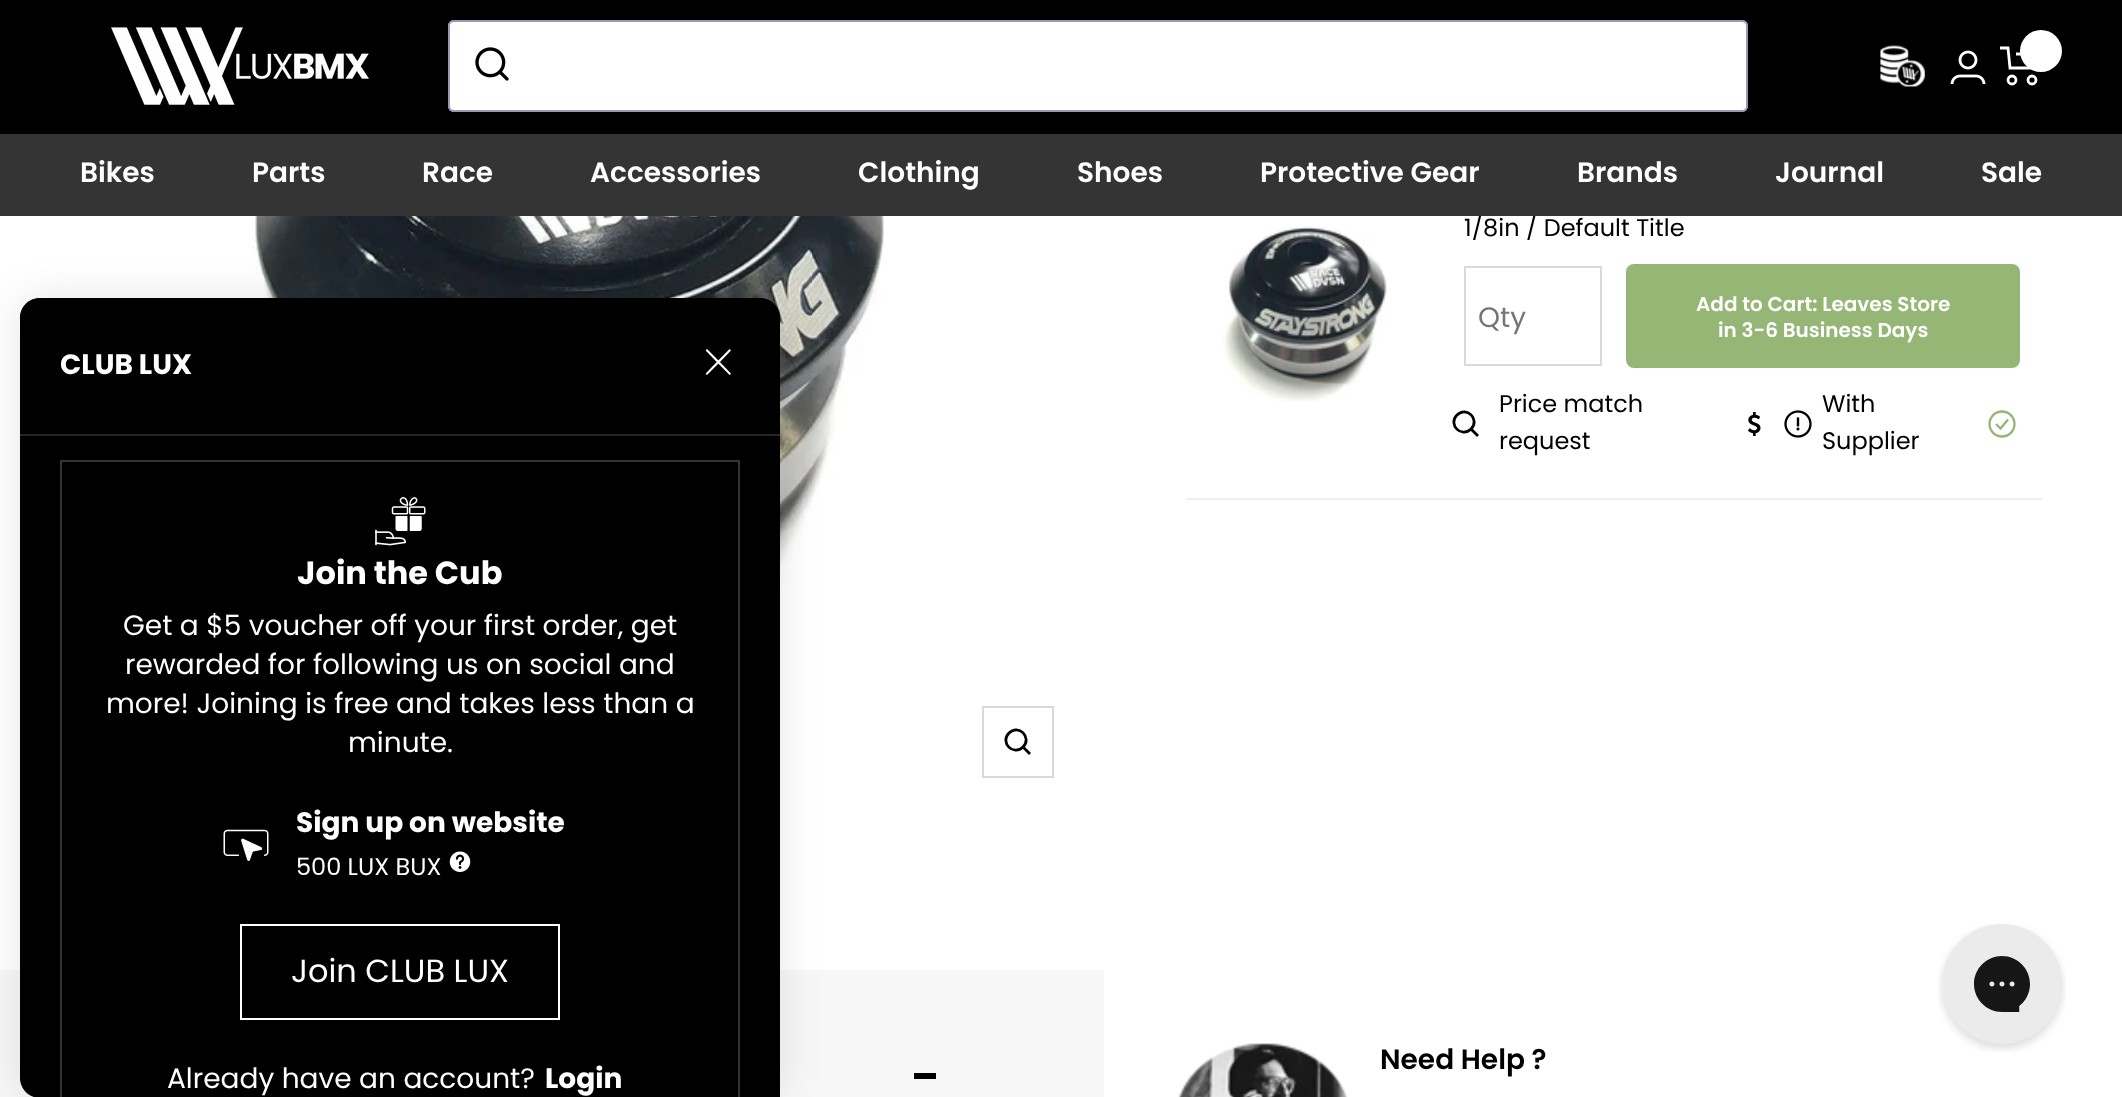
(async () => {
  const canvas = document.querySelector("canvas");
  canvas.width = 2122;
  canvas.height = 1097;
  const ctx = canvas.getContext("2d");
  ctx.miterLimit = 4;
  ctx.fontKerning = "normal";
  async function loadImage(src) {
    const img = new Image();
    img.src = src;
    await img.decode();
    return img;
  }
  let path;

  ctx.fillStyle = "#ffffff";
  ctx.fillRect(0, 0, 2122, 1097);
  ctx.fillStyle = "#000000";
  ctx.fillRect(0, 0, 2122, 134);
  ctx.drawImage(await loadImage("img/1.png"), 111, 27, 258, 78);
  ctx.fillStyle = "#ffffff";
  ctx.beginPath();
  ctx.roundRect(448, 20, 1300, 92, 6);
  ctx.fill();
  ctx.beginPath();
  ctx.roundRect(449, 21, 1298, 90, 5);
  ctx.strokeStyle = "rgba(128, 126, 163, 0.8)";
  ctx.lineWidth = 2;
  ctx.stroke();
  ctx.drawImage(await loadImage("img/2.png"), 475, 47, 34, 34);
  ctx.drawImage(await loadImage("img/3.png"), 1880, 45, 45, 42);
  ctx.drawImage(await loadImage("img/4.png"), 1950, 50, 36, 34);
  path = new Path2D("M2000 48H2008L2010 68H2034L2038 54H2016");
  ctx.strokeStyle = "#ffffff";
  ctx.lineWidth = 2.8;
  ctx.stroke(path);
  ctx.beginPath();
  ctx.arc(2041, 51, 21, 0, Math.PI * 2);
  ctx.fill();
  ctx.beginPath();
  ctx.arc(2012, 80, 4, 0, Math.PI * 2);
  ctx.stroke();
  ctx.beginPath();
  ctx.arc(2032, 80, 4, 0, Math.PI * 2);
  ctx.stroke();
  ctx.drawImage(await loadImage("img/9.png"), 229, 216, 656, 473);
  ctx.fillStyle = "#f7f7f7";
  ctx.fillRect(0, 970, 1104, 127);
  ctx.fillStyle = "rgba(0, 0, 0, 0.1)";
  ctx.filter = "blur(20px)";
  ctx.beginPath();
  ctx.roundRect(20, 298, 760, 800, 20);
  ctx.fill();
  ctx.filter = "none";
  ctx.fillStyle = "#000000";
  path = new Path2D("M40 298H760C771 298 780 307 780 318V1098H40C29 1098 20 1089 20 1078V318C20 307 29 298 40 298Z");
  ctx.fill(path);
  ctx.fillStyle = "#262626";
  ctx.fillRect(20, 434, 760, 2);
  ctx.fillStyle = "rgba(0, 0, 0, 0.5)";
  ctx.beginPath();
  ctx.roundRect(20, 298, 760, 136, [20, 20, 0, 0]);
  ctx.fill();
  ctx.beginPath();
  ctx.roundRect(20, 298, 760, 136, [20, 20, 0, 0]);
  ctx.fill();
  ctx.drawImage(await loadImage("img/5.png"), 705, 349, 26, 26);
  ctx.fillStyle = "#333333";
  path = new Path2D("M60 460V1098H62V462H738V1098H740V460Z");
  ctx.fill(path);
  ctx.drawImage(await loadImage("img/6.png"), 375, 497, 51, 49);
  ctx.drawImage(await loadImage("img/7.png"), 223, 829, 46, 32);
  ctx.drawImage(await loadImage("img/8.png"), 449, 851, 22, 21);
  ctx.lineWidth = 2;
  ctx.strokeRect(241, 925, 318, 94);
  ctx.strokeStyle = "#d9d9d9";
  ctx.strokeRect(983, 707, 70, 70);
  path = new Path2D("M1023 747C1032.5 737.5 1018.5 723.5 1009 733C999.5 742.5 1013.5 756.5 1023 747ZM1023 747L1030 754");
  ctx.strokeStyle = "#000000";
  ctx.lineWidth = 2.8;
  ctx.stroke(path);
  ctx.fillStyle = "#efefef";
  ctx.fillRect(1186, 498, 856, 2);
  ctx.drawImage(await loadImage("img/10.png"), 1222, 226, 165, 176);
  ctx.strokeStyle = "#d9d9d9";
  ctx.lineWidth = 2;
  ctx.strokeRect(1465, 267, 136, 98);
  ctx.fillStyle = "#95b675";
  ctx.beginPath();
  ctx.roundRect(1626, 264, 394, 104, 8);
  ctx.fill();
  path = new Path2D("M1471 429C1480.5 419.5 1466.5 405.5 1457 415C1447.5 424.5 1461.5 438.5 1471 429ZM1471 429L1478 436");
  ctx.strokeStyle = "#000000";
  ctx.lineWidth = 2.8;
  ctx.stroke(path);
  ctx.drawImage(await loadImage("img/11.png"), 1748, 412, 13, 24);
  ctx.drawImage(await loadImage("img/12.png"), 1784, 410, 28, 28);
  ctx.beginPath();
  ctx.arc(2002, 424, 12.5, 0, Math.PI * 2);
  ctx.strokeStyle = "#95b675";
  ctx.lineWidth = 2.3;
  ctx.stroke();
  path = new Path2D("M1996 424L2000.5 428.5L2008 419.5");
  ctx.stroke(path);
  ctx.fillStyle = "#000000";
  ctx.fillRect(914, 1073, 22, 6);
  ctx.drawImage(await loadImage("img/13.png"), 1178, 1043, 170, 54);
  ctx.drawImage(await loadImage("img/14.png"), 1938, 924, 128, 128);
  ctx.font = "bold 28px Poppins";
  ctx.fillStyle = "#ffffff";
  ctx.fillText("CLUB LUX", 60, 374);
  ctx.font = "bold 32px Poppins";
  ctx.fillText("Join the Cub", 297, 584);
  ctx.font = "28px Poppins";
  for (const [text, x, y] of [
    ["Get a $5 voucher off your first order, get", 123, 635],
    ["rewarded for following us on social and", 125, 674],
    ["more! Joining is free and takes less than a", 106, 713],
    ["minute.", 348, 752],
  ]) {
    ctx.fillText(text, x, y);
  }
  ctx.font = "bold 28px Poppins";
  ctx.fillText("Sign up on website", 296, 832);
  ctx.font = "24px Poppins";
  ctx.fillText("500 LUX BUX", 296, 875);
  ctx.font = "32px Poppins";
  ctx.fillText("Join CLUB LUX", 291, 982);
  ctx.font = "28px Poppins";
  ctx.fillText("Already have an account?", 167, 1088);
  ctx.font = "bold 28px Poppins";
  ctx.fillText("Login", 545, 1088);
  ctx.font = "24px Poppins";
  ctx.fillStyle = "#000000";
  ctx.fillText("1/8in / Default Title", 1464, 236);
  ctx.fillStyle = "#343434";
  ctx.fillRect(0, 134, 2122, 82);
  ctx.font = "600 28px Poppins";
  ctx.fillStyle = "#ffffff";
  for (const [text, x, y] of [
    ["Sale", 1981, 182],
    ["Journal", 1775, 182],
    ["Brands", 1577, 182],
    ["Protective Gear", 1260, 182],
    ["Shoes", 1077, 182],
    ["Clothing", 858, 182],
    ["Accessories", 590, 182],
    ["Race", 422, 182],
    ["Parts", 252, 182],
    ["Bikes", 80, 182],
  ]) {
    ctx.fillText(text, x, y);
  }
  ctx.font = "28px Poppins";
  ctx.fillStyle = "#757575";
  ctx.fillText("Qty", 1478, 327);
  ctx.font = "600 20px Poppins";
  ctx.fillStyle = "#ffffff";
  ctx.fillText("Add to Cart: Leaves Store", 1696, 311);
  ctx.fillText("in 3-6 Business Days", 1718, 337);
  ctx.font = "24px Poppins";
  ctx.fillStyle = "#000000";
  for (const [text, x, y] of [
    ["Price match", 1499, 412],
    ["request", 1499, 449],
    ["With", 1822, 412],
    ["Supplier", 1822, 449],
  ]) {
    ctx.fillText(text, x, y);
  }
  ctx.font = "600 28px Poppins";
  ctx.fillText("Need Help ?", 1380, 1069);
})();
